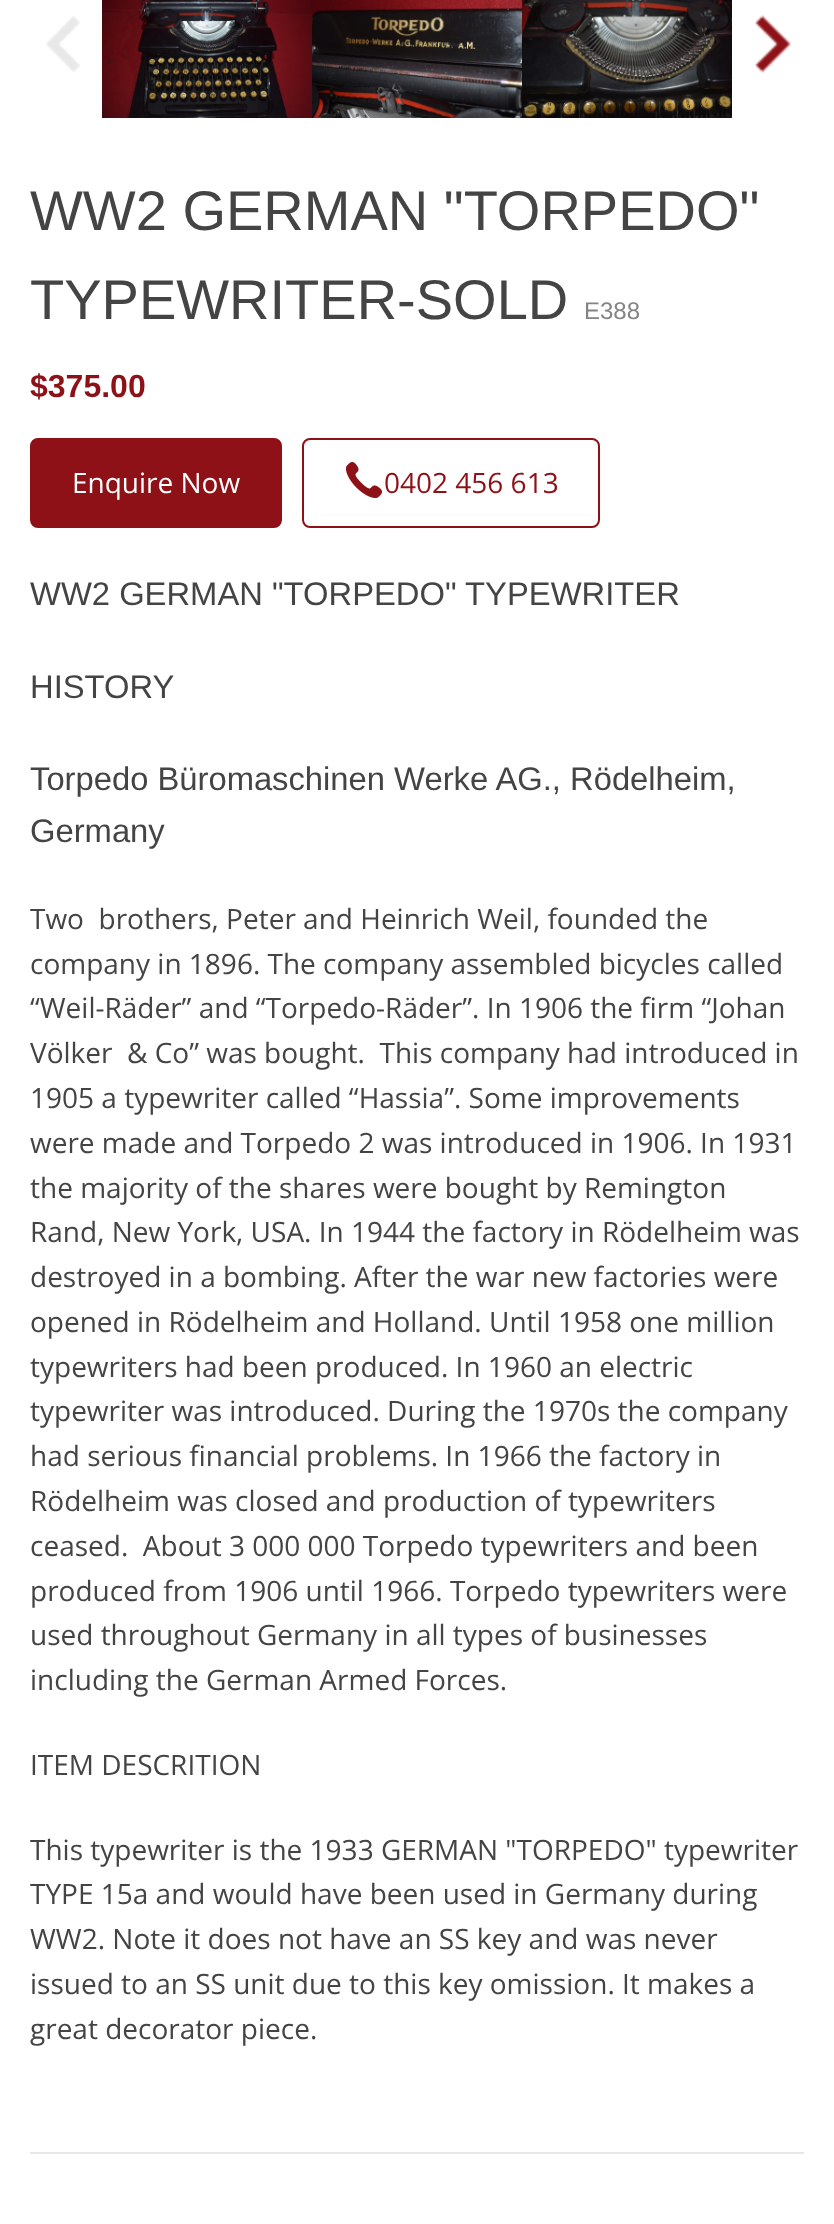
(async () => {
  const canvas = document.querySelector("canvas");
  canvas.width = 834;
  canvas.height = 2224;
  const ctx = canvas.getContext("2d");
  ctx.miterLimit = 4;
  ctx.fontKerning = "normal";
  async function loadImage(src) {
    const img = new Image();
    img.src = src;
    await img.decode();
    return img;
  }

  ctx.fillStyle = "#ffffff";
  ctx.fillRect(0, 0, 834, 2224);
  ctx.drawImage(await loadImage("img/1.png"), 46, 16, 35, 56);
  ctx.drawImage(await loadImage("img/2.png"), 102, 0, 210, 118);
  ctx.drawImage(await loadImage("img/3.png"), 312, 0, 210, 118);
  ctx.drawImage(await loadImage("img/4.png"), 522, 0, 210, 118);
  ctx.drawImage(await loadImage("img/5.png"), 755, 15, 36, 58);
  ctx.fillStyle = "#8d1117";
  ctx.beginPath();
  ctx.roundRect(31, 439, 250, 88, 7);
  ctx.fill();
  ctx.strokeStyle = "#8d1117";
  ctx.lineWidth = 2;
  ctx.stroke();
  ctx.beginPath();
  ctx.roundRect(303, 439, 296, 88, 7);
  ctx.stroke();
  ctx.drawImage(await loadImage("img/6.png"), 346, 462, 36, 36);
  ctx.fillStyle = "#e7e7e7";
  ctx.fillRect(30, 2152, 774, 2);
  ctx.font = "56px Liberation Sans";
  ctx.fillStyle = "#444444";
  ctx.fillText("WW2 GERMAN \"TORPEDO\"", 30, 230);
  ctx.fillText("TYPEWRITER-SOLD", 30, 319);
  ctx.font = "24px Liberation Sans";
  ctx.fillStyle = "#848484";
  ctx.fillText("E388", 584, 319);
  ctx.font = "bold 32px Liberation Sans";
  ctx.fillStyle = "#8d1117";
  ctx.fillText("$375.00", 30, 397);
  ctx.font = "28px Open Sans";
  ctx.fillStyle = "#ffffff";
  ctx.fillText("Enquire Now", 72, 493);
  ctx.fillStyle = "#8d1117";
  ctx.fillText("0402 456 613", 384, 493);
  ctx.font = "32.75px Liberation Sans";
  ctx.fillStyle = "#444444";
  for (const [text, x, y] of [
    ["WW2 GERMAN \"TORPEDO\" TYPEWRITER", 30, 605],
    ["HISTORY", 30, 698],
    ["Torpedo Büromaschinen Werke AG., Rödelheim,", 30, 790],
    ["Germany", 30, 842],
  ]) {
    ctx.fillText(text, x, y);
  }
  ctx.font = "28px Open Sans";
  for (const [text, x, y] of [
    ["Two  brothers, Peter and Heinrich Weil, founded the", 30, 929],
    ["company in 1896. The company assembled bicycles called", 30, 974],
    ["“Weil-Räder” and “Torpedo-Räder”. In 1906 the firm “Johan", 30, 1018],
    ["Völker  & Co” was bought.  This company had introduced in", 30, 1063],
    ["1905 a typewriter called “Hassia”. Some improvements", 30, 1108],
    ["were made and Torpedo 2 was introduced in 1906. In 1931", 30, 1153],
    ["the majority of the shares were bought by Remington", 30, 1198],
    ["Rand, New York, USA. In 1944 the factory in Rödelheim was", 30, 1242],
    ["destroyed in a bombing. After the war new factories were", 30, 1287],
    ["opened in Rödelheim and Holland. Until 1958 one million", 30, 1332],
    ["typewriters had been produced. In 1960 an electric", 30, 1377],
    ["typewriter was introduced. During the 1970s the company", 30, 1421],
    ["had serious financial problems. In 1966 the factory in", 30, 1466],
    ["Rödelheim was closed and production of typewriters", 30, 1511],
    ["ceased.  About 3 000 000 Torpedo typewriters and been", 30, 1556],
    ["produced from 1906 until 1966. Torpedo typewriters were", 30, 1601],
    ["used throughout Germany in all types of businesses", 30, 1645],
    ["including the German Armed Forces.", 30, 1690],
    ["ITEM DESCRITION", 30, 1775],
    ["This typewriter is the 1933 GERMAN \"TORPEDO\" typewriter", 30, 1860],
    ["TYPE 15a and would have been used in Germany during", 30, 1904],
    ["WW2. Note it does not have an SS key and was never", 30, 1949],
    ["issued to an SS unit due to this key omission. It makes a", 30, 1994],
    ["great decorator piece.", 30, 2039],
  ]) {
    ctx.fillText(text, x, y);
  }
})();
